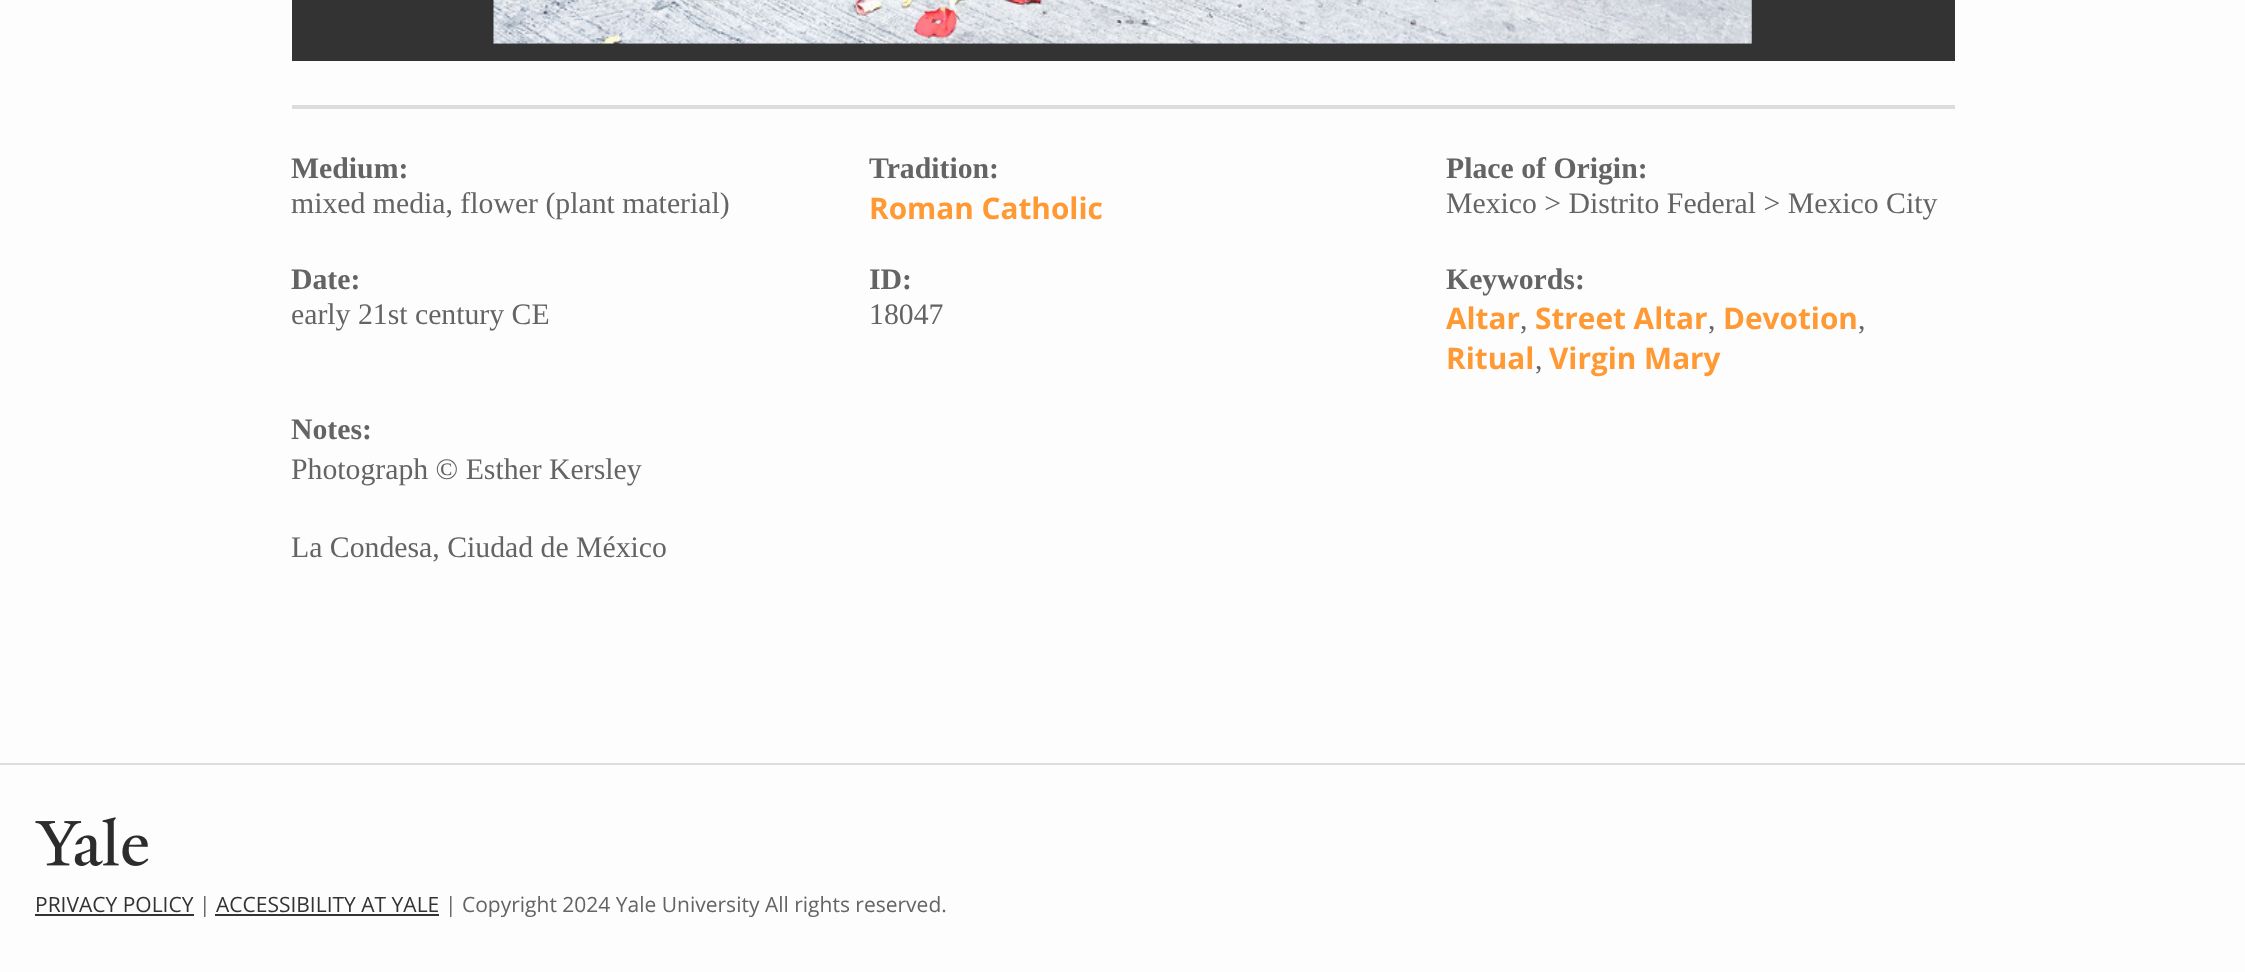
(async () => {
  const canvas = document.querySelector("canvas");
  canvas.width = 2245;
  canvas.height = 972;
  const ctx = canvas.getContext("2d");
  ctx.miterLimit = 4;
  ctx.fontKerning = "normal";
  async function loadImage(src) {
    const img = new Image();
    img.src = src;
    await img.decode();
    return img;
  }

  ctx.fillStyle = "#fdfdfd";
  ctx.fillRect(0, 0, 2245, 972);
  ctx.fillStyle = "#333333";
  ctx.fillRect(292, 0, 1663, 61);
  ctx.drawImage(await loadImage("img/1.png"), 493, 0, 1259, 44);
  ctx.fillStyle = "#dcdcdc";
  ctx.fillRect(292, 105, 1663, 4);
  ctx.fillRect(0, 763, 2245, 2);
  ctx.drawImage(await loadImage("img/2.png"), 35, 817, 114, 49);
  ctx.fillStyle = "#333333";
  ctx.fillRect(35, 914, 159, 2);
  ctx.fillRect(215, 914, 224, 2);
  ctx.font = "bold 29.75px Liberation Serif";
  ctx.fillStyle = "#646464";
  ctx.fillText("Medium:", 291, 178);
  ctx.font = "29.75px Liberation Serif";
  ctx.fillText("mixed media, flower (plant material)", 291, 213);
  ctx.font = "bold 29.75px Liberation Serif";
  ctx.fillText("Tradition:", 869, 178);
  ctx.font = "bold 29.75px Open Sans";
  ctx.fillStyle = "#ff9933";
  ctx.fillText("Roman Catholic", 869, 219);
  ctx.font = "bold 29.75px Liberation Serif";
  ctx.fillStyle = "#646464";
  ctx.fillText("Place of Origin:", 1446, 178);
  ctx.font = "29.75px Liberation Serif";
  ctx.fillText("Mexico > Distrito Federal > Mexico City", 1446, 213);
  ctx.font = "bold 29.75px Liberation Serif";
  ctx.fillText("Date:", 291, 289);
  ctx.font = "29.75px Liberation Serif";
  ctx.fillText("early 21st century CE", 291, 324);
  ctx.font = "bold 29.75px Liberation Serif";
  ctx.fillText("ID:", 869, 289);
  ctx.font = "29.75px Liberation Serif";
  ctx.fillText("18047", 869, 324);
  ctx.font = "bold 29.75px Liberation Serif";
  ctx.fillText("Keywords:", 1446, 289);
  ctx.font = "bold 29.75px Open Sans";
  ctx.fillStyle = "#ff9933";
  ctx.fillText("Altar", 1446, 329);
  ctx.font = "29.75px Liberation Serif";
  ctx.fillStyle = "#646464";
  ctx.fillText(",", 1520, 329);
  ctx.font = "bold 29.75px Open Sans";
  ctx.fillStyle = "#ff9933";
  ctx.fillText("Street Altar", 1535, 329);
  ctx.font = "29.75px Liberation Serif";
  ctx.fillStyle = "#646464";
  ctx.fillText(",", 1708, 329);
  ctx.font = "bold 29.75px Open Sans";
  ctx.fillStyle = "#ff9933";
  ctx.fillText("Devotion", 1723, 329);
  ctx.font = "29.75px Liberation Serif";
  ctx.fillStyle = "#646464";
  ctx.fillText(",", 1858, 329);
  ctx.font = "bold 29.75px Open Sans";
  ctx.fillStyle = "#ff9933";
  ctx.fillText("Ritual", 1446, 369);
  ctx.font = "29.75px Liberation Serif";
  ctx.fillStyle = "#646464";
  ctx.fillText(",", 1535, 369);
  ctx.font = "bold 29.75px Open Sans";
  ctx.fillStyle = "#ff9933";
  ctx.fillText("Virgin Mary", 1549, 369);
  ctx.font = "bold 29.75px Liberation Serif";
  ctx.fillStyle = "#646464";
  ctx.fillText("Notes:", 291, 439);
  ctx.font = "29.75px Liberation Serif";
  ctx.fillText("Photograph © Esther Kersley", 291, 479);
  ctx.fillText("La Condesa, Ciudad de México", 291, 557);
  ctx.font = "21px Open Sans";
  ctx.fillStyle = "#333333";
  ctx.fillText("PRIVACY POLICY", 35, 912);
  ctx.fillStyle = "#646464";
  ctx.fillText("|", 199, 912);
  ctx.fillStyle = "#333333";
  ctx.fillText("ACCESSIBILITY AT YALE", 216, 912);
  ctx.fillStyle = "#646464";
  ctx.fillText("| Copyright 2024 Yale University All rights reserved.", 445, 912);
})();
